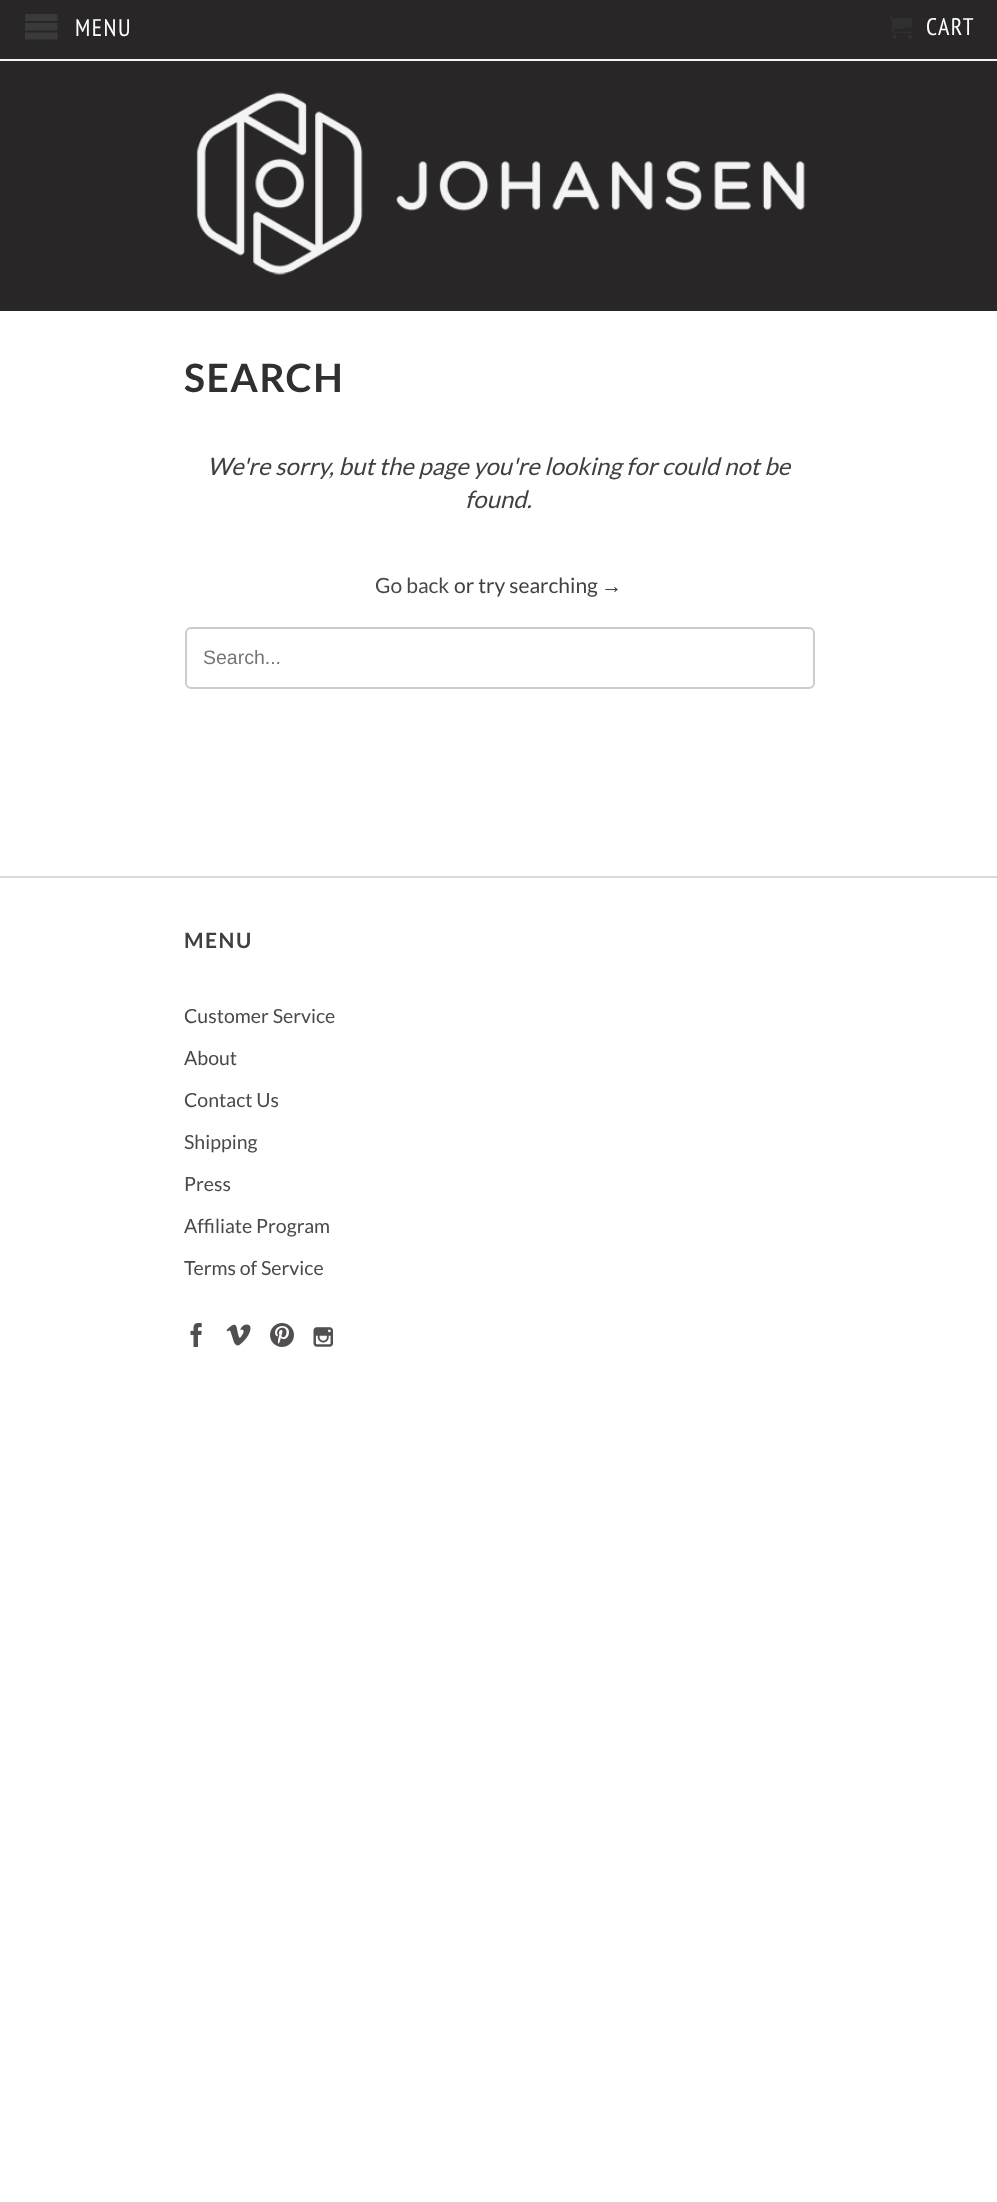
(async () => {
  const canvas = document.querySelector("canvas");
  canvas.width = 997;
  canvas.height = 2202;
  const ctx = canvas.getContext("2d");
  ctx.miterLimit = 4;
  ctx.fontKerning = "normal";
  async function loadImage(src) {
    const img = new Image();
    img.src = src;
    await img.decode();
    return img;
  }
  let path;

  ctx.fillStyle = "#ffffff";
  ctx.fillRect(0, 0, 997, 2202);
  ctx.fillStyle = "#282626";
  ctx.fillRect(0, 0, 997, 59);
  ctx.fillStyle = "#f4f4f4";
  ctx.fillRect(0, 59, 997, 2);
  ctx.fillStyle = "#3a3a3a";
  path = new Path2D("M25 14V21H57.5V14ZM25 23V30.5H57.5V23ZM25 32.5V39.5H57.5V32.5Z");
  ctx.fill(path);
  ctx.drawImage(await loadImage("img/1.png"), 889, 15, 23, 24);
  ctx.fillStyle = "#282626";
  ctx.fillRect(0, 61, 997, 250);
  ctx.drawImage(await loadImage("img/2.png"), 196, 92, 609, 183);
  ctx.beginPath();
  ctx.roundRect(186, 628, 628, 60, 5);
  ctx.strokeStyle = "#cccccc";
  ctx.lineWidth = 2;
  ctx.stroke();
  ctx.fillStyle = "#d8dbdb";
  ctx.fillRect(0, 876, 997, 2);
  ctx.drawImage(await loadImage("img/3.png"), 190, 1323, 12, 24);
  ctx.drawImage(await loadImage("img/4.png"), 226, 1324, 25, 22);
  ctx.drawImage(await loadImage("img/5.png"), 270, 1323, 24, 24);
  ctx.drawImage(await loadImage("img/6.png"), 313, 1327, 20, 20);
  ctx.letterSpacing = "1.5px";
  ctx.font = "24px PT Sans Narrow";
  ctx.fillStyle = "#ffffff";
  ctx.fillText("MENU", 75, 36);
  ctx.fillText("CART", 926, 35);
  ctx.font = "bold 39px Lato";
  ctx.fillStyle = "#303030";
  ctx.fillText("SEARCH", 184, 392);
  ctx.letterSpacing = "0px";
  ctx.font = "italic 24px Lato";
  ctx.fillStyle = "#404040";
  ctx.fillText("We're sorry, but the page you're looking for could not be", 207, 475);
  ctx.fillText("found.", 465, 508);
  ctx.font = "21px Lato";
  ctx.fillStyle = "#4d4848";
  ctx.fillText("Go back", 375, 593);
  ctx.fillStyle = "#404040";
  ctx.fillText("or try searching", 454, 593);
  ctx.font = "21px Liberation Serif";
  ctx.fillText("→", 601, 593);
  ctx.font = "19.5px Liberation Sans";
  ctx.fillStyle = "#757575";
  ctx.fillText("Search...", 203, 664);
  ctx.letterSpacing = "1.5px";
  ctx.font = "bold 21px Lato";
  ctx.fillStyle = "#404040";
  ctx.fillText("MENU", 184, 948);
  ctx.letterSpacing = "0px";
  ctx.font = "19.5px Lato";
  ctx.fillStyle = "#4d4848";
  for (const [text, x, y] of [
    ["Customer Service", 184, 1023],
    ["About", 184, 1065],
    ["Contact Us", 184, 1107],
    ["Shipping", 184, 1149],
    ["Press", 184, 1191],
    ["Affiliate Program", 184, 1233],
    ["Terms of Service", 184, 1275],
  ]) {
    ctx.fillText(text, x, y);
  }
})();
